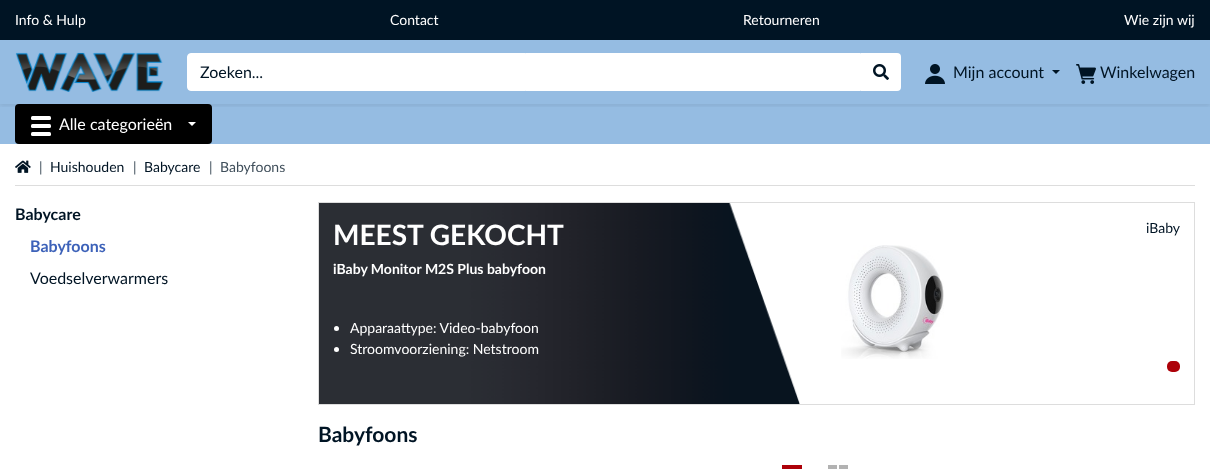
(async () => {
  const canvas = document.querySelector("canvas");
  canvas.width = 1210;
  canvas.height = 469;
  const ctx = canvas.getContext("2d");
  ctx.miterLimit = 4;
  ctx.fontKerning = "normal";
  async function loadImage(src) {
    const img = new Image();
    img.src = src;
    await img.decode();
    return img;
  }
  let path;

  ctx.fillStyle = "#ffffff";
  ctx.fillRect(0, 0, 1210, 469);
  ctx.fillStyle = "#001424";
  ctx.fillRect(0, 0, 1210, 40);
  ctx.fillStyle = "#95bce2";
  ctx.fillRect(0, 40, 1210, 104);
  ctx.save();
  ctx.beginPath();
  ctx.rect(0, 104, 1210, 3);
  ctx.clip();
  ctx.fillStyle = "rgba(0, 0, 0, 0.07)";
  ctx.filter = "blur(2px)";
  ctx.beginPath();
  ctx.rect(0, 42, 1210, 64);
  ctx.fill();
  ctx.filter = "none";
  ctx.restore();
  ctx.drawImage(await loadImage("img/1.png"), 15, 52, 148, 40);
  ctx.fillStyle = "#ffffff";
  ctx.beginPath();
  ctx.roundRect(187.5, 53.5, 673, 37, [3.5, 0, 0, 3.5]);
  ctx.fill();
  ctx.strokeStyle = "#ffffff";
  ctx.stroke();
  ctx.beginPath();
  ctx.roundRect(861, 53, 40, 38, [0, 4, 4, 0]);
  ctx.fill();
  ctx.drawImage(await loadImage("img/2.png"), 873, 64, 16, 16);
  ctx.drawImage(await loadImage("img/3.png"), 925, 64, 20, 20);
  ctx.fillStyle = "#001424";
  path = new Path2D("M1052 70H1060L1056 74Z");
  ctx.fill(path);
  ctx.drawImage(await loadImage("img/4.png"), 1076, 64, 20, 20);
  ctx.fillStyle = "#000000";
  ctx.beginPath();
  ctx.roundRect(15, 104, 197, 40, 4);
  ctx.fill();
  ctx.fillStyle = "#ffffff";
  ctx.beginPath();
  ctx.roundRect(31, 116, 20, 4, 1.5);
  ctx.fill();
  path = new Path2D("M188 122H196L192 126Z");
  ctx.fill(path);
  ctx.beginPath();
  ctx.roundRect(31, 124, 20, 4, 1.5);
  ctx.fill();
  ctx.beginPath();
  ctx.roundRect(31, 132, 20, 4, 1.5);
  ctx.fill();
  ctx.fillStyle = "#dddddd";
  ctx.fillRect(15, 185, 1180, 1);
  ctx.drawImage(await loadImage("img/5.png"), 15, 160, 16, 13);
  ctx.strokeStyle = "#dddddd";
  ctx.strokeRect(318.5, 202.5, 876, 202);
  ctx.drawImage(await loadImage("img/6.png"), 319, 203, 481, 201);
  ctx.fillStyle = "#ffffff";
  ctx.beginPath();
  ctx.arc(336.5, 328.5, 2.5, 0, Math.PI * 2);
  ctx.fill();
  ctx.beginPath();
  ctx.arc(336.5, 349.5, 2.5, 0, Math.PI * 2);
  ctx.fill();
  ctx.drawImage(await loadImage("img/7.png"), 841, 245, 103, 114);
  ctx.fillStyle = "#ad0109";
  ctx.beginPath();
  ctx.roundRect(1167, 361, 13, 11, 5);
  ctx.fill();
  for (const [x, y, w, h, color] of [
    [782, 465, 20, 4, "#ad0109"],
    [828, 465, 9, 4, "#b2b2b2"],
    [839, 465, 9, 4, "#b2b2b2"],
  ]) {
    ctx.fillStyle = color;
    ctx.fillRect(x, y, w, h);
  }
  ctx.font = "14px Lato";
  ctx.fillStyle = "#ffffff";
  for (const [text, x, y] of [
    ["Info & Hulp", 15, 25],
    ["Contact", 390, 25],
    ["Retourneren", 743, 25],
    ["Wie zijn wij", 1124, 25],
  ]) {
    ctx.fillText(text, x, y);
  }
  ctx.font = "16px Lato";
  ctx.fillStyle = "#001424";
  for (const [text, x, y] of [
    ["Zoeken...", 200, 78],
    ["Mijn account", 953, 78],
    ["Winkelwagen", 1100, 78],
  ]) {
    ctx.fillText(text, x, y);
  }
  ctx.fillStyle = "#ffffff";
  ctx.fillText("Alle categorieën", 59, 130);
  ctx.font = "14px Lato";
  ctx.fillStyle = "#404f5b";
  ctx.fillText("|", 39, 172);
  ctx.fillStyle = "#001424";
  ctx.fillText("Huishouden", 50, 172);
  ctx.fillStyle = "#404f5b";
  ctx.fillText("|", 133, 172);
  ctx.fillStyle = "#001424";
  ctx.fillText("Babycare", 144, 172);
  ctx.fillStyle = "#404f5b";
  ctx.fillText("|", 209, 172);
  ctx.fillText("Babyfoons", 220, 172);
  ctx.font = "bold 16px Lato";
  ctx.fillStyle = "#001424";
  ctx.fillText("Babycare", 15, 220);
  ctx.fillStyle = "#3d62b9";
  ctx.fillText("Babyfoons", 30, 252);
  ctx.font = "16px Lato";
  ctx.fillStyle = "#001424";
  ctx.fillText("Voedselverwarmers", 30, 284);
  ctx.font = "bold 28px Lato";
  ctx.fillStyle = "#ffffff";
  ctx.fillText("MEEST GEKOCHT", 333, 245);
  ctx.font = "bold 14px Lato";
  ctx.fillText("iBaby Monitor M2S Plus babyfoon", 333, 274);
  ctx.font = "14px Lato";
  ctx.fillText("Apparaattype: Video-babyfoon", 350, 333);
  ctx.fillText("Stroomvoorziening: Netstroom", 350, 354);
  ctx.fillStyle = "#001424";
  ctx.fillText("iBaby", 1146, 233);
  ctx.font = "bold 21px Lato";
  ctx.fillText("Babyfoons", 318, 442);
})();
